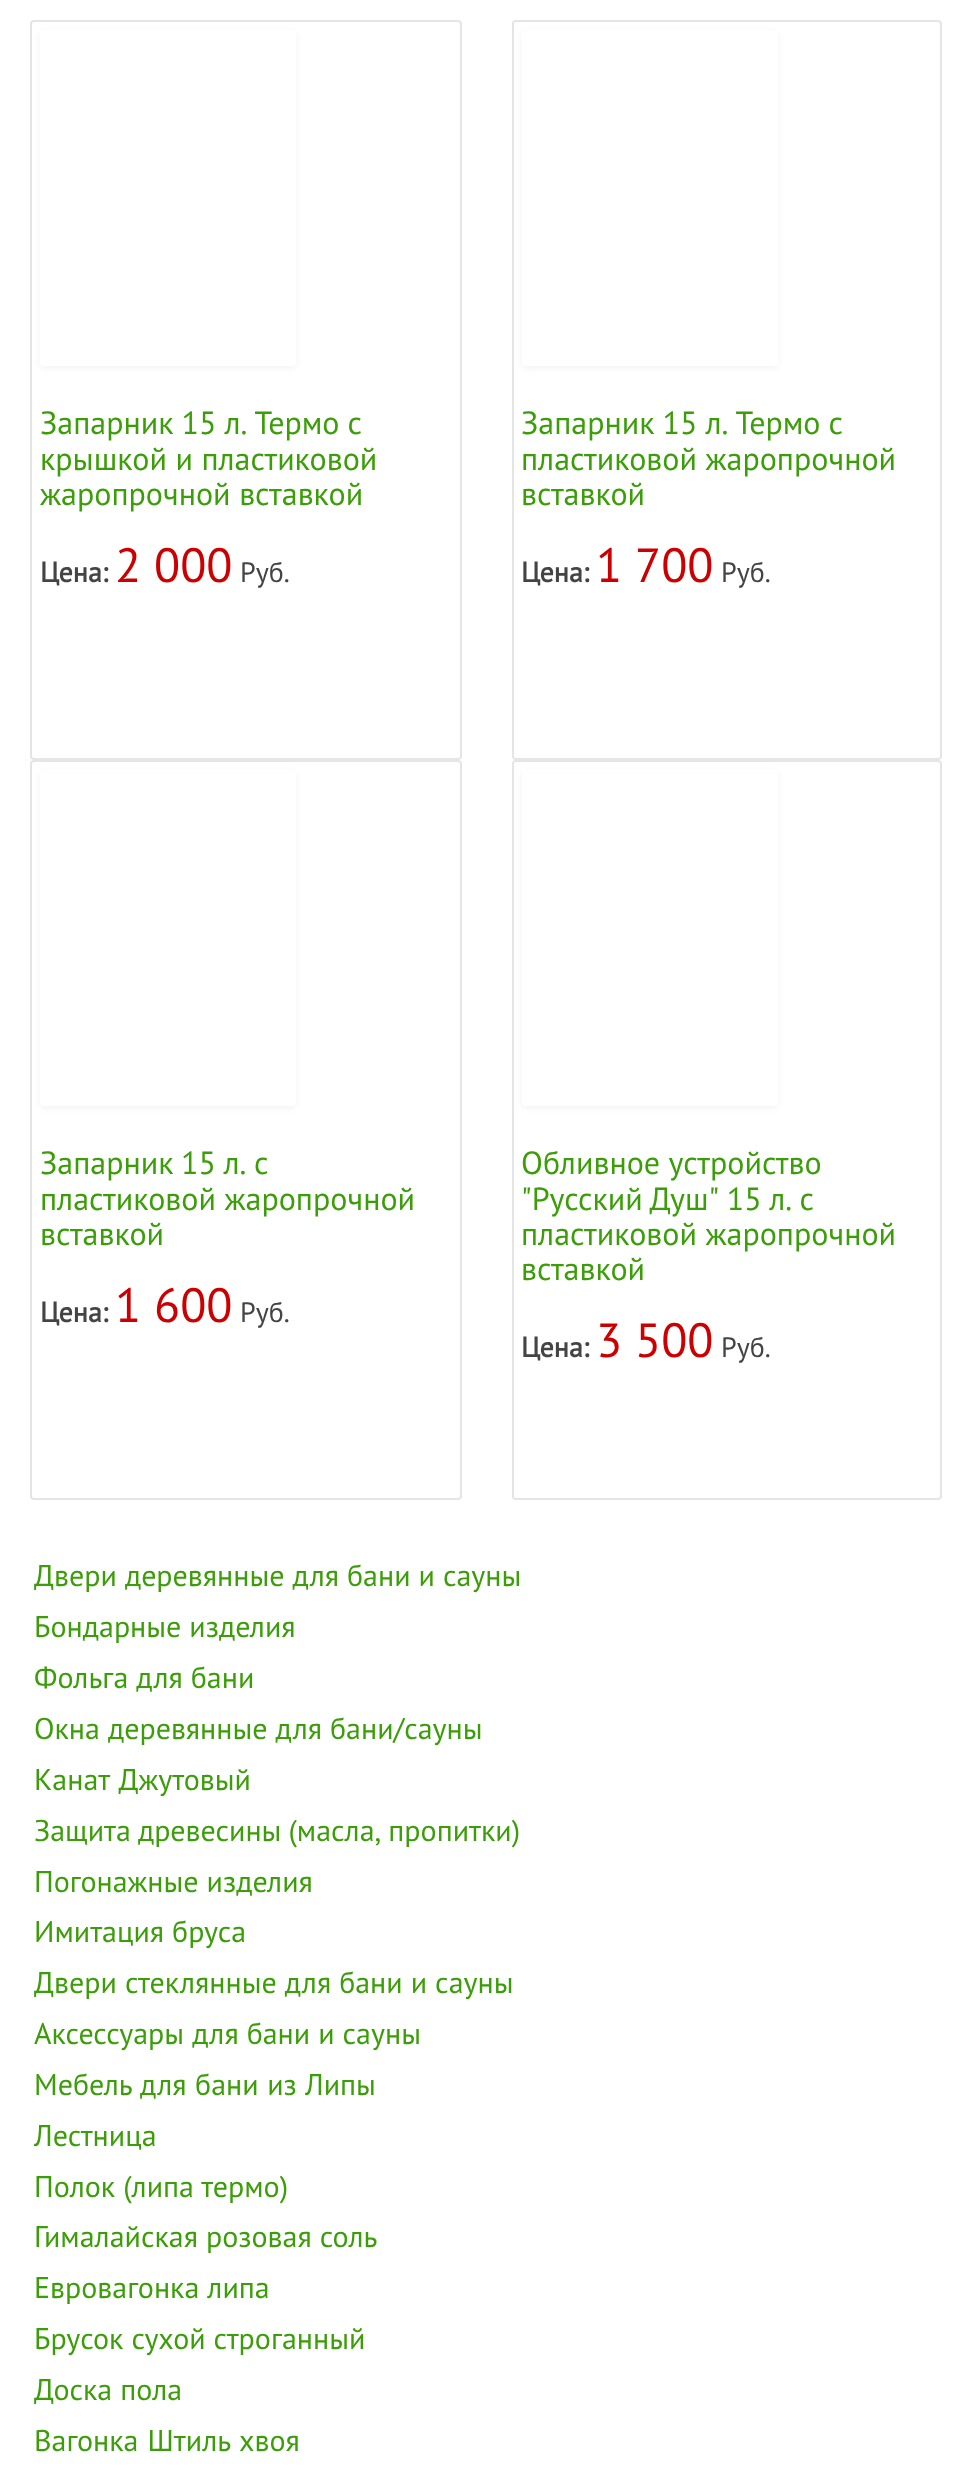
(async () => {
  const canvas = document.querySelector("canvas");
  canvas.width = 972;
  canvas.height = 2487;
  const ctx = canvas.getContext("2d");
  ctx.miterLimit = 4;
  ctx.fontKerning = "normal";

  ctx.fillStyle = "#ffffff";
  ctx.fillRect(0, 0, 972, 2487);
  ctx.beginPath();
  ctx.roundRect(31, 21, 430, 738, 3);
  ctx.strokeStyle = "#e5e5e5";
  ctx.lineWidth = 2;
  ctx.stroke();
  ctx.fillStyle = "rgba(0, 0, 0, 0.05)";
  ctx.filter = "blur(3px)";
  ctx.beginPath();
  ctx.roundRect(40, 32, 256, 336, 4);
  ctx.fill();
  ctx.filter = "none";
  ctx.fillStyle = "#ffffff";
  ctx.beginPath();
  ctx.roundRect(40, 30, 256, 336, 4);
  ctx.fill();
  ctx.beginPath();
  ctx.roundRect(513, 21, 428, 738, 3);
  ctx.stroke();
  ctx.fillStyle = "rgba(0, 0, 0, 0.05)";
  ctx.filter = "blur(3px)";
  ctx.beginPath();
  ctx.roundRect(522, 32, 256, 336, 4);
  ctx.fill();
  ctx.filter = "none";
  ctx.fillStyle = "#ffffff";
  ctx.beginPath();
  ctx.roundRect(522, 30, 256, 336, 4);
  ctx.fill();
  ctx.beginPath();
  ctx.roundRect(31, 761, 430, 738, 3);
  ctx.stroke();
  ctx.fillStyle = "rgba(0, 0, 0, 0.05)";
  ctx.filter = "blur(3px)";
  ctx.beginPath();
  ctx.roundRect(40, 772, 256, 336, 4);
  ctx.fill();
  ctx.filter = "none";
  ctx.fillStyle = "#ffffff";
  ctx.beginPath();
  ctx.roundRect(40, 770, 256, 336, 4);
  ctx.fill();
  ctx.beginPath();
  ctx.roundRect(513, 761, 428, 738, 3);
  ctx.stroke();
  ctx.fillStyle = "rgba(0, 0, 0, 0.05)";
  ctx.filter = "blur(3px)";
  ctx.beginPath();
  ctx.roundRect(522, 772, 256, 336, 4);
  ctx.fill();
  ctx.filter = "none";
  ctx.fillStyle = "#ffffff";
  ctx.beginPath();
  ctx.roundRect(522, 770, 256, 336, 4);
  ctx.fill();
  ctx.wordSpacing = "-0.5px";
  ctx.font = "32px PT Sans";
  ctx.fillStyle = "#3b9d08";
  ctx.fillText("Запарник 15 л. Термо с", 40, 434);
  ctx.wordSpacing = "0px";
  ctx.fillText("крышкой и пластиковой", 40, 470);
  ctx.fillText("жаропрочной вставкой", 40, 505);
  ctx.font = "bold 28px PT Sans";
  ctx.fillStyle = "#444444";
  ctx.fillText("Цена:", 40, 582);
  ctx.font = "48px PT Sans";
  ctx.fillStyle = "#cc0000";
  ctx.fillText("2 000", 115, 582);
  ctx.font = "28px PT Sans";
  ctx.fillStyle = "#444444";
  ctx.fillText("Руб.", 240, 582);
  ctx.wordSpacing = "-0.5px";
  ctx.font = "32px PT Sans";
  ctx.fillStyle = "#3b9d08";
  ctx.fillText("Запарник 15 л. Термо с", 521, 434);
  ctx.wordSpacing = "0px";
  ctx.fillText("пластиковой жаропрочной", 521, 470);
  ctx.fillText("вставкой", 521, 505);
  ctx.font = "bold 28px PT Sans";
  ctx.fillStyle = "#444444";
  ctx.fillText("Цена:", 521, 582);
  ctx.font = "48px PT Sans";
  ctx.fillStyle = "#cc0000";
  ctx.fillText("1 700", 596, 582);
  ctx.font = "28px PT Sans";
  ctx.fillStyle = "#444444";
  ctx.fillText("Руб.", 721, 582);
  ctx.wordSpacing = "-1px";
  ctx.font = "32px PT Sans";
  ctx.fillStyle = "#3b9d08";
  ctx.fillText("Запарник 15 л. с", 40, 1174);
  ctx.wordSpacing = "0px";
  ctx.fillText("пластиковой жаропрочной", 40, 1210);
  ctx.fillText("вставкой", 40, 1245);
  ctx.font = "bold 28px PT Sans";
  ctx.fillStyle = "#444444";
  ctx.fillText("Цена:", 40, 1322);
  ctx.font = "48px PT Sans";
  ctx.fillStyle = "#cc0000";
  ctx.fillText("1 600", 115, 1322);
  ctx.font = "28px PT Sans";
  ctx.fillStyle = "#444444";
  ctx.fillText("Руб.", 240, 1322);
  ctx.font = "32px PT Sans";
  ctx.fillStyle = "#3b9d08";
  ctx.fillText("Обливное устройство", 521, 1174);
  ctx.wordSpacing = "-1px";
  ctx.fillText("\"Русский Душ\" 15 л. с", 521, 1210);
  ctx.wordSpacing = "0px";
  ctx.fillText("пластиковой жаропрочной", 521, 1245);
  ctx.fillText("вставкой", 521, 1280);
  ctx.font = "bold 28px PT Sans";
  ctx.fillStyle = "#444444";
  ctx.fillText("Цена:", 521, 1357);
  ctx.font = "48px PT Sans";
  ctx.fillStyle = "#cc0000";
  ctx.fillText("3 500", 596, 1357);
  ctx.font = "28px PT Sans";
  ctx.fillStyle = "#444444";
  ctx.fillText("Руб.", 721, 1357);
  ctx.font = "30px PT Sans";
  ctx.fillStyle = "#3b9d08";
  for (const [text, x, y] of [
    ["Двери деревянные для бани и сауны", 34, 1586],
    ["Бондарные изделия", 34, 1637],
    ["Фольга для бани", 34, 1688],
    ["Окна деревянные для бани/сауны", 34, 1739],
  ]) {
    ctx.fillText(text, x, y);
  }
  ctx.wordSpacing = "2px";
  ctx.fillText("Канат Джутовый", 34, 1790);
  ctx.wordSpacing = "-1px";
  ctx.fillText("Защита древесины (масла, пропитки)", 34, 1841);
  ctx.wordSpacing = "0px";
  for (const [text, x, y] of [
    ["Погонажные изделия", 34, 1892],
    ["Имитация бруса", 34, 1942],
    ["Двери стеклянные для бани и сауны", 34, 1993],
    ["Аксессуары для бани и сауны", 34, 2044],
  ]) {
    ctx.fillText(text, x, y);
  }
  ctx.wordSpacing = "0.5px";
  ctx.fillText("Мебель для бани из Липы", 34, 2095);
  ctx.wordSpacing = "0px";
  for (const [text, x, y] of [
    ["Лестница", 34, 2146],
    ["Полок (липа термо)", 34, 2197],
    ["Гималайская розовая соль", 34, 2247],
    ["Евровагонка липа", 34, 2298],
    ["Брусок сухой строганный", 34, 2349],
    ["Доска пола", 34, 2400],
  ]) {
    ctx.fillText(text, x, y);
  }
  ctx.wordSpacing = "1px";
  ctx.fillText("Вагонка Штиль хвоя", 34, 2451);
})();
